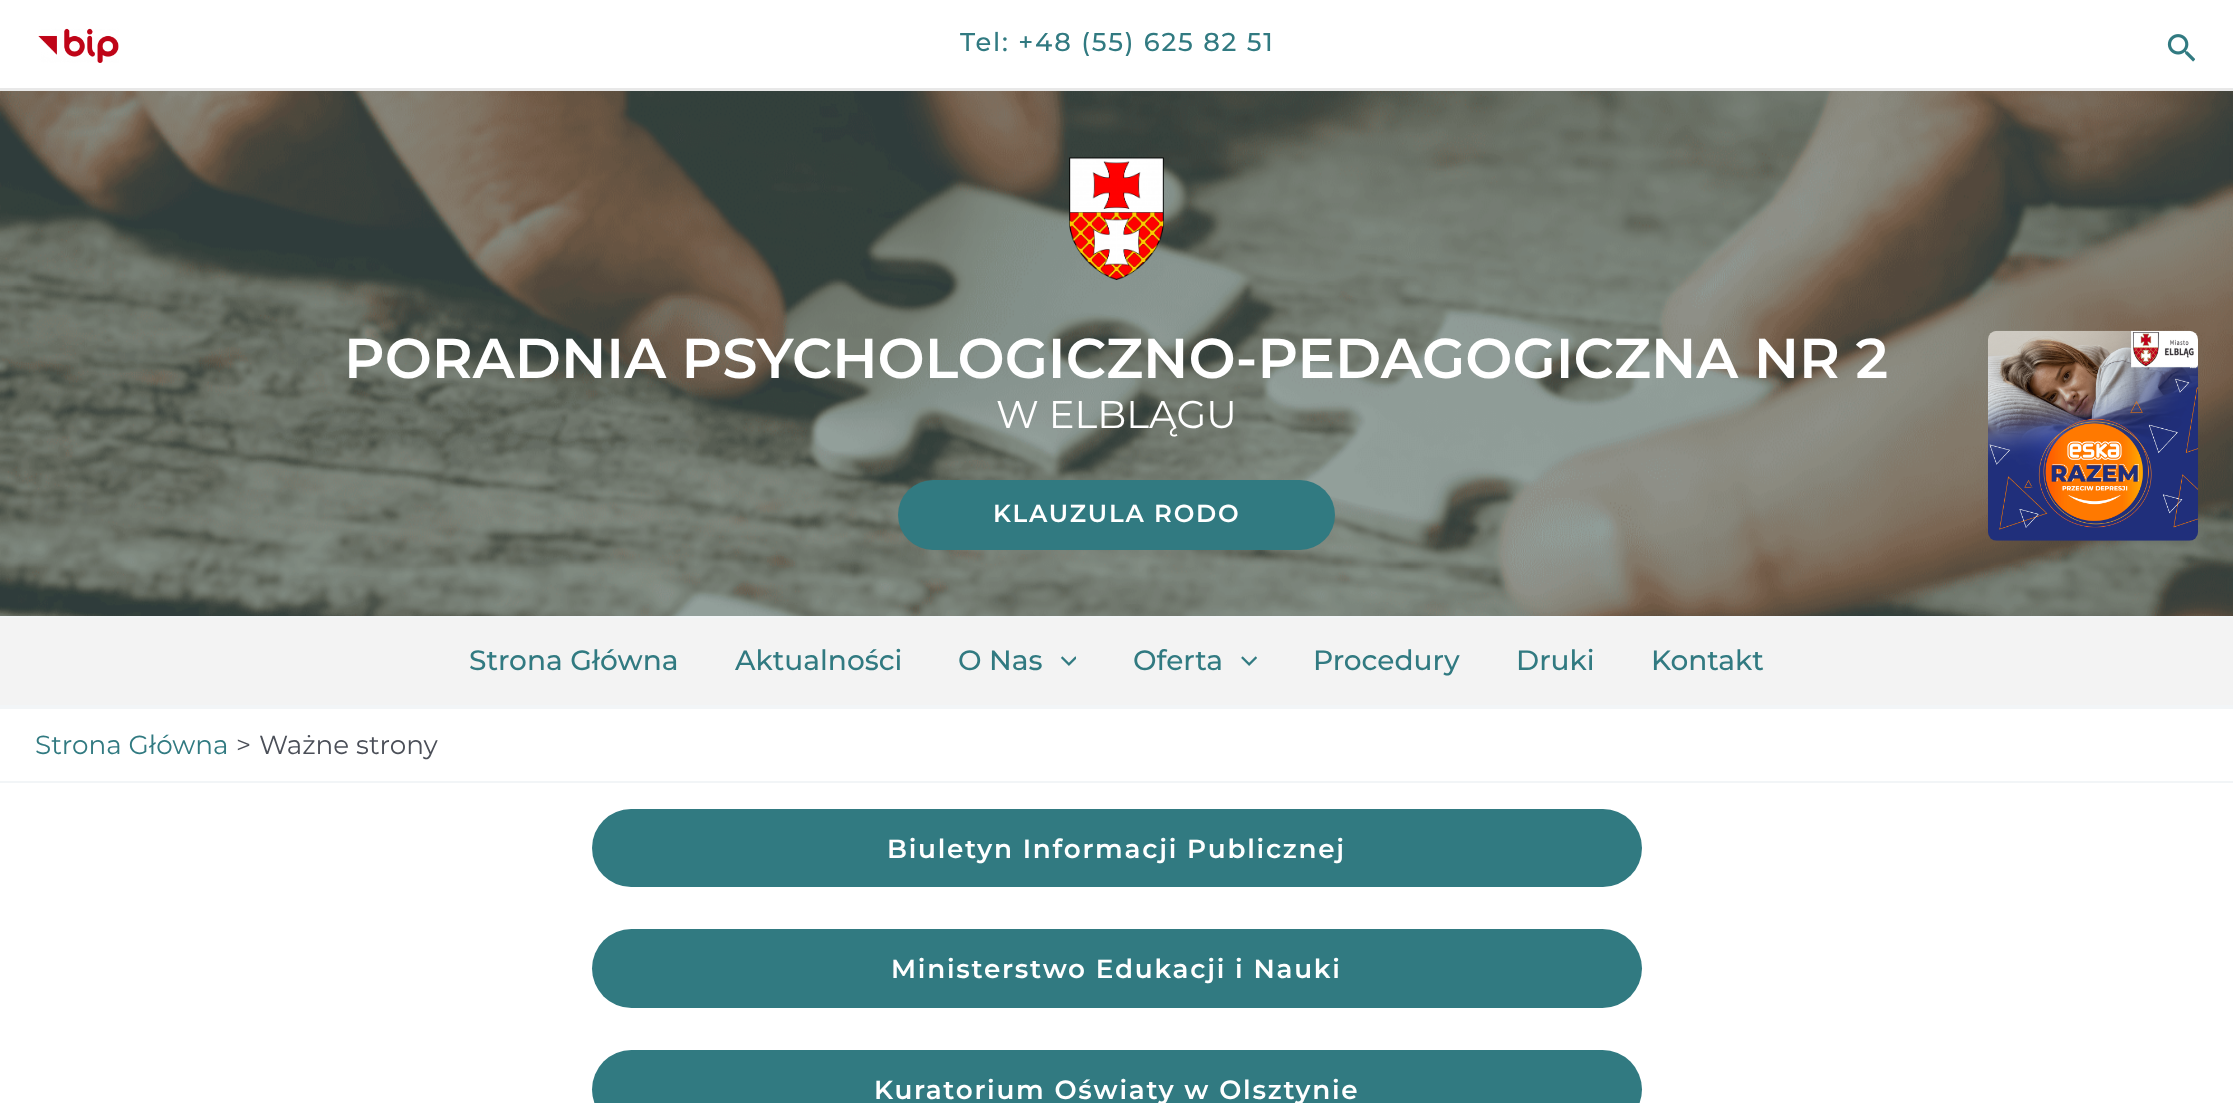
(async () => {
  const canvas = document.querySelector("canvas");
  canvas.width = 2233;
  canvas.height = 1103;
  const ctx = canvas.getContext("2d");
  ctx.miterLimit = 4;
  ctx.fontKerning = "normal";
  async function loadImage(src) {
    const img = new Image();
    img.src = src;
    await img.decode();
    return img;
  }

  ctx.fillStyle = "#ffffff";
  ctx.fillRect(0, 0, 2233, 1103);
  ctx.fillStyle = "#e8e8e8";
  ctx.fillRect(0, 88, 2233, 3);
  ctx.drawImage(await loadImage("img/1.png"), 38, 28, 81, 35);
  ctx.drawImage(await loadImage("img/2.png"), 2167, 34, 28, 28);
  ctx.fillStyle = "#f2f5f7";
  ctx.fillRect(0, 616, 2233, 2);
  ctx.drawImage(await loadImage("img/3.png"), 0, 91, 2233, 525);
  ctx.drawImage(await loadImage("img/4.png"), 1069, 157, 95, 123);
  ctx.drawImage(await loadImage("img/5.png"), 1988, 330, 210, 211);
  ctx.fillStyle = "#317a81";
  ctx.beginPath();
  ctx.roundRect(898, 480, 437, 70, 35);
  ctx.fill();
  ctx.fillStyle = "#f3f3f3";
  ctx.fillRect(0, 618, 2233, 87);
  ctx.fillStyle = "#f2f5f7";
  ctx.fillRect(0, 705, 2233, 4);
  ctx.drawImage(await loadImage("img/6.png"), 1061, 656, 15, 10);
  ctx.drawImage(await loadImage("img/7.png"), 1241, 656, 16, 10);
  ctx.fillRect(0, 781, 2233, 2);
  ctx.fillStyle = "#317a81";
  ctx.beginPath();
  ctx.roundRect(592, 809, 1050, 78, 39);
  ctx.fill();
  ctx.beginPath();
  ctx.roundRect(592, 929, 1050, 79, 39.5);
  ctx.fill();
  ctx.beginPath();
  ctx.roundRect(592, 1050, 1050, 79, 39.5);
  ctx.fill();
  ctx.letterSpacing = "1.75px";
  ctx.font = "500 25.75px Montserrat";
  ctx.fillText("Tel: +48 (55) 625 82 51", 960, 51);
  ctx.letterSpacing = "0px";
  ctx.font = "600 56px Montserrat";
  ctx.fillStyle = "#ffffff";
  ctx.fillText("PORADNIA PSYCHOLOGICZNO-PEDAGOGICZNA NR 2", 344, 378);
  ctx.font = "38.5px Montserrat";
  ctx.fillText("W ELBLĄGU", 996, 428);
  ctx.letterSpacing = "1.75px";
  ctx.font = "600 24.5px Montserrat";
  ctx.fillText("KLAUZULA RODO", 993, 522);
  ctx.letterSpacing = "0px";
  ctx.font = "500 28px Montserrat";
  ctx.fillStyle = "#317a81";
  for (const [text, x, y] of [
    ["Strona Główna", 469, 670],
    ["Aktualności", 735, 670],
    ["O Nas", 958, 670],
    ["Oferta", 1133, 670],
    ["Procedury", 1313, 670],
    ["Druki", 1516, 670],
    ["Kontakt", 1651, 670],
  ]) {
    ctx.fillText(text, x, y);
  }
  ctx.font = "26.25px Montserrat";
  ctx.fillText("Strona Główna", 35, 754);
  ctx.fillStyle = "#4b4f58";
  ctx.fillText(">", 236, 754);
  ctx.fillText("Ważne strony", 259, 754);
  ctx.letterSpacing = "1.75px";
  ctx.font = "600 26.25px Montserrat";
  ctx.fillStyle = "#ffffff";
  for (const [text, x, y] of [
    ["Biuletyn Informacji Publicznej", 887, 858],
    ["Ministerstwo Edukacji i Nauki", 891, 978],
    ["Kuratorium Oświaty w Olsztynie", 874, 1099],
  ]) {
    ctx.fillText(text, x, y);
  }
})();
